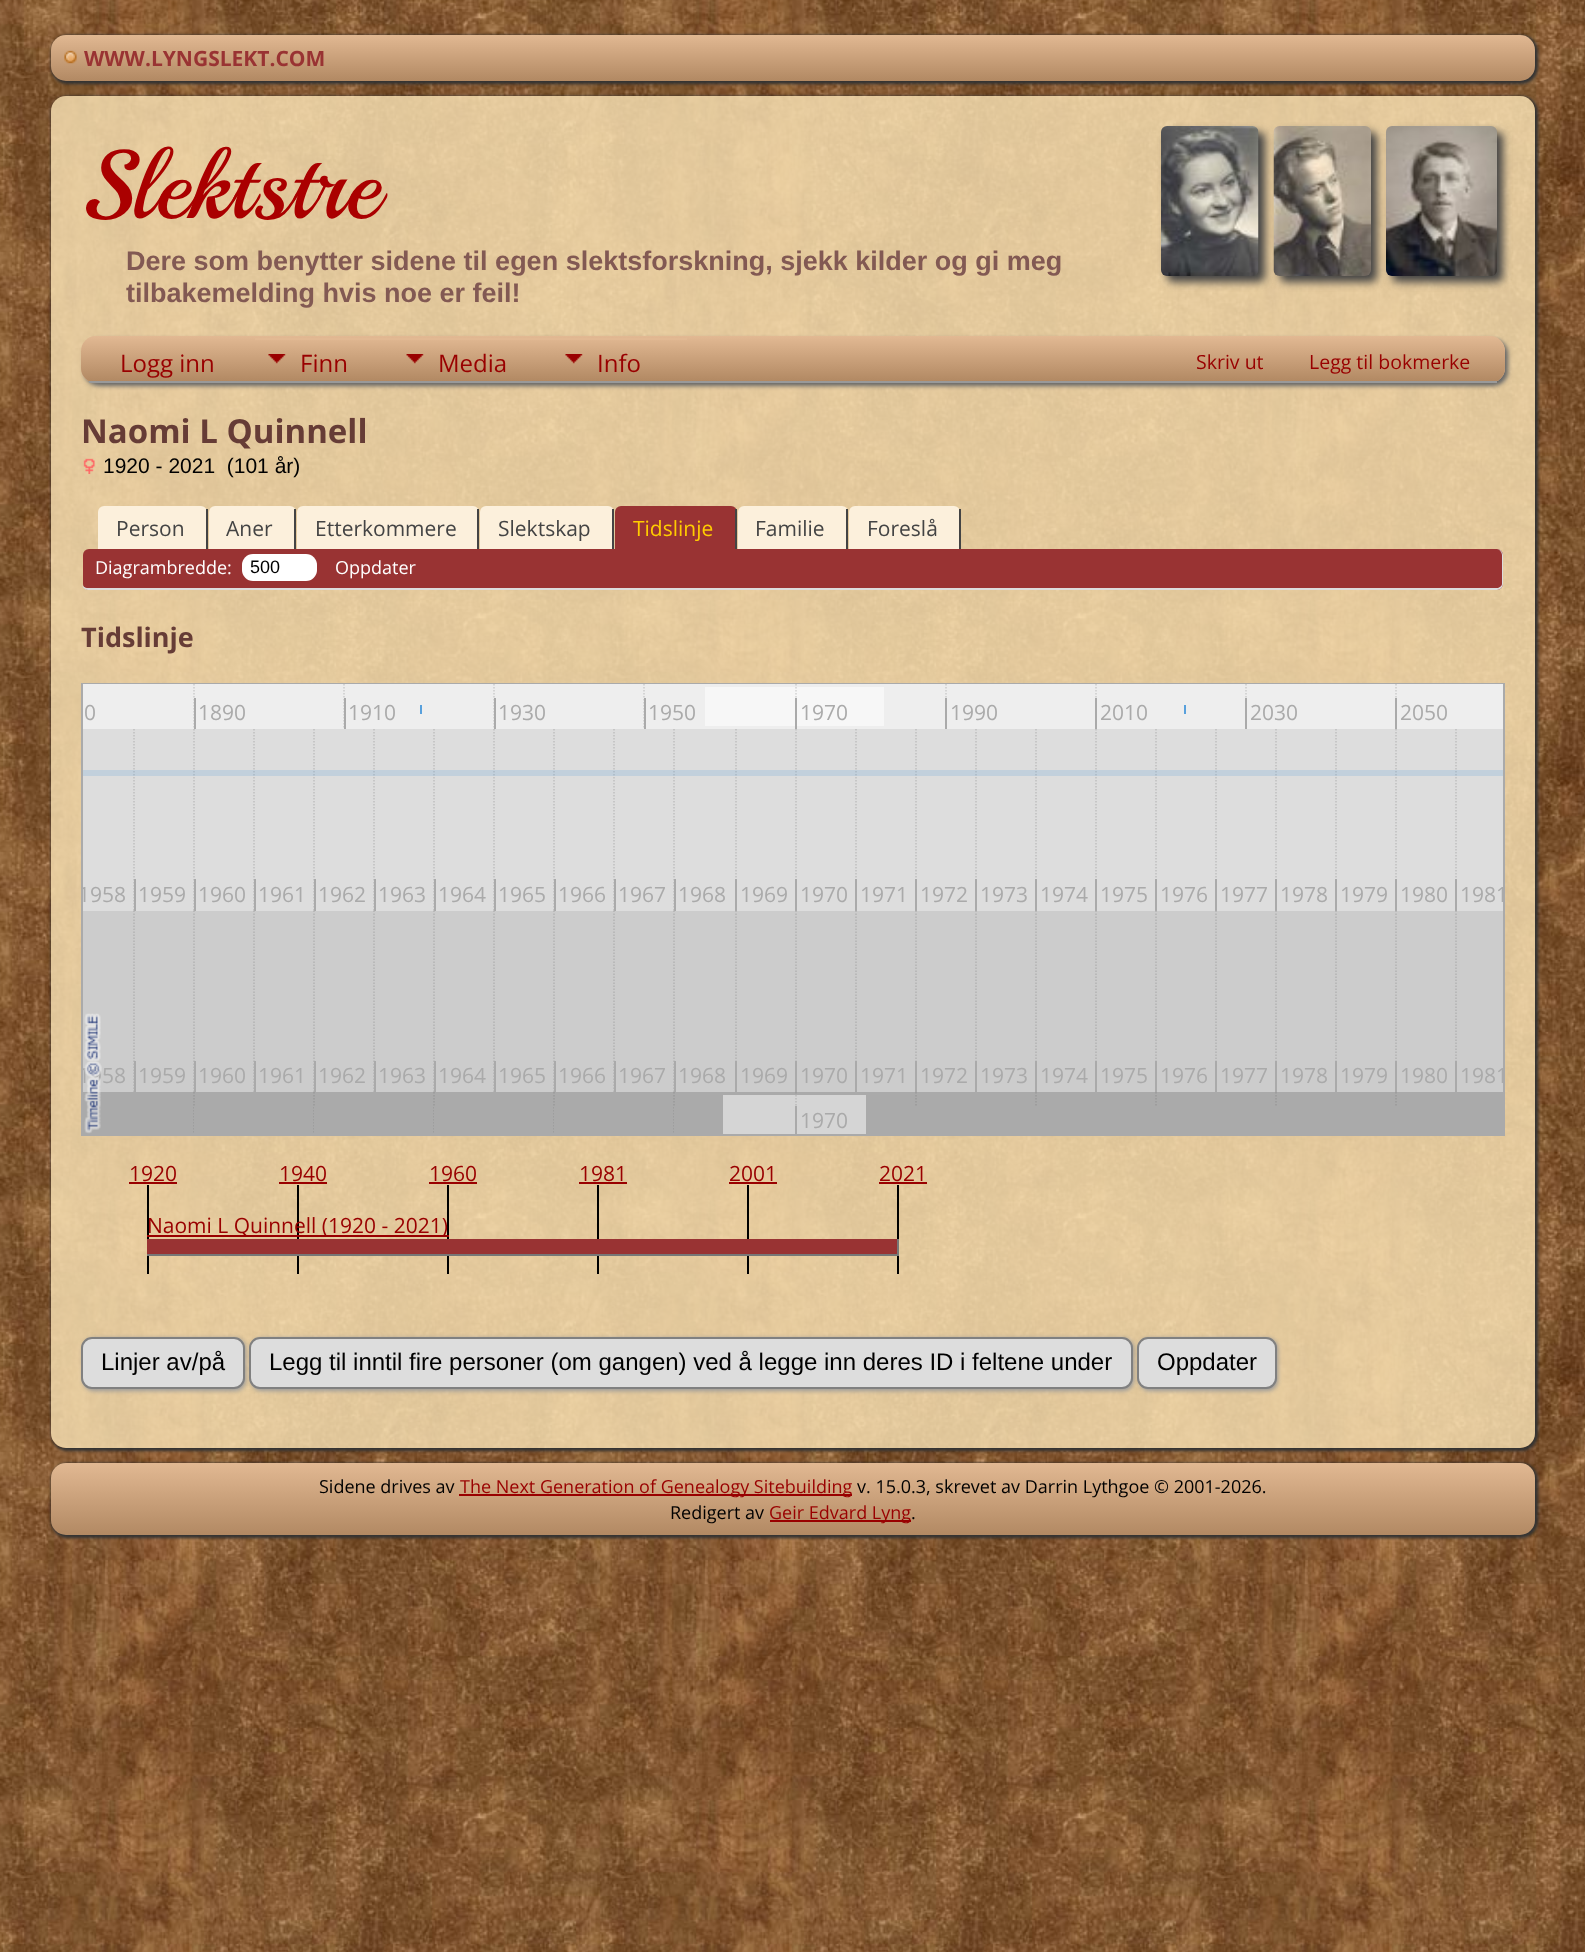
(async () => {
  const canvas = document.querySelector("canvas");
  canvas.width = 1585;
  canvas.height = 1952;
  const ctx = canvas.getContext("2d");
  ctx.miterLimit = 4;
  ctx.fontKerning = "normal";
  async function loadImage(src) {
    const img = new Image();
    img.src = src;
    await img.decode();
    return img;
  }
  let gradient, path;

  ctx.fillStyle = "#ffffff";
  ctx.fillRect(0, 0, 1585, 1952);
  ctx.drawImage(await loadImage("img/1.png"), 0, 0, 1585, 1952);
  ctx.fillStyle = "#333333";
  ctx.filter = "blur(1.5px)";
  ctx.beginPath();
  ctx.roundRect(51, 35, 1487, 49, 17);
  ctx.fill();
  ctx.filter = "none";
  gradient = ctx.createLinearGradient(793, 34, 793, 81);
  gradient.addColorStop(0, "#e2b993");
  gradient.addColorStop(1, "#b28963");
  ctx.fillStyle = gradient;
  ctx.beginPath();
  ctx.roundRect(51, 35, 1484, 46, 15);
  ctx.fill();
  ctx.drawImage(await loadImage("img/2.png"), 64, 50, 13, 14);
  ctx.save();
  path = new Path2D("M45 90H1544V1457H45ZM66 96H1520C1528.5 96 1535 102.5 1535 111V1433C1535 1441.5 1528.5 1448 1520 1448H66C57.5 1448 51 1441.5 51 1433V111C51 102.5 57.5 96 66 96Z");
  ctx.clip(path, "evenodd");
  ctx.fillStyle = "#333333";
  ctx.filter = "blur(1.5px)";
  ctx.beginPath();
  ctx.roundRect(51, 96, 1487, 1355, 17);
  ctx.fill();
  ctx.filter = "none";
  ctx.restore();
  ctx.fillStyle = "rgba(253, 230, 184, 0.8)";
  ctx.beginPath();
  ctx.roundRect(51, 96, 1484, 1352, 15);
  ctx.fill();
  ctx.fillStyle = "#444444";
  ctx.filter = "blur(4.5px)";
  ctx.beginPath();
  ctx.roundRect(1392, 132, 111, 150, 6);
  ctx.fill();
  ctx.filter = "none";
  ctx.drawImage(await loadImage("img/5.png"), 1386, 126, 111, 150);
  ctx.filter = "blur(4.5px)";
  ctx.beginPath();
  ctx.roundRect(1280, 132, 97, 150, 6);
  ctx.fill();
  ctx.filter = "none";
  ctx.drawImage(await loadImage("img/4.png"), 1273, 126, 98, 150);
  ctx.filter = "blur(4.5px)";
  ctx.beginPath();
  ctx.roundRect(1167, 132, 98, 150, 6);
  ctx.fill();
  ctx.filter = "none";
  ctx.drawImage(await loadImage("img/3.png"), 1161, 126, 98, 150);
  ctx.fillStyle = "#666666";
  ctx.filter = "blur(2px)";
  ctx.beginPath();
  ctx.roundRect(84, 339, 1424, 47, 15);
  ctx.fill();
  ctx.filter = "none";
  ctx.fillStyle = "#e2b993";
  ctx.beginPath();
  ctx.roundRect(81, 336, 1424, 47, 15);
  ctx.fill();
  ctx.save();
  ctx.beginPath();
  ctx.roundRect(81, 336, 1424, 47, 15);
  ctx.clip();
  gradient = ctx.createLinearGradient(793, 336, 793, 381);
  gradient.addColorStop(0, "#e2b993");
  gradient.addColorStop(1, "#b28963");
  ctx.fillStyle = gradient;
  ctx.beginPath();
  ctx.roundRect(81, 336, 1424, 45, [15, 15, 0, 0]);
  ctx.fill();
  ctx.restore();
  ctx.fillStyle = "#999999";
  ctx.fillRect(89, 381, 1408, 2);
  ctx.fillStyle = "#e2b993";
  ctx.fillRect(255, 338, 432, 2);
  ctx.drawImage(await loadImage("img/6.png"), 255, 340, 138, 41);
  ctx.drawImage(await loadImage("img/7.png"), 393, 340, 159, 41);
  ctx.drawImage(await loadImage("img/8.png"), 552, 340, 135, 41);
  ctx.drawImage(await loadImage("img/9.png"), 83, 458, 12, 16);
  ctx.fillStyle = "#fcf0dc";
  ctx.beginPath();
  ctx.roundRect(98, 506, 109, 43, [6, 6, 0, 0]);
  ctx.fill();
  ctx.fillStyle = "#444444";
  ctx.fillRect(206, 509, 2, 40);
  ctx.fillStyle = "#fcf0dc";
  ctx.beginPath();
  ctx.roundRect(209, 506, 87, 43, [6, 6, 0, 0]);
  ctx.fill();
  ctx.fillStyle = "#444444";
  ctx.fillRect(294, 509, 2, 40);
  ctx.fillStyle = "#fcf0dc";
  ctx.beginPath();
  ctx.roundRect(297, 506, 182, 43, [6, 6, 0, 0]);
  ctx.fill();
  ctx.fillStyle = "#444444";
  ctx.fillRect(477, 509, 2, 40);
  ctx.fillStyle = "#fcf0dc";
  ctx.beginPath();
  ctx.roundRect(480, 506, 134, 43, [6, 6, 0, 0]);
  ctx.fill();
  ctx.fillStyle = "#444444";
  ctx.fillRect(612, 509, 2, 40);
  ctx.fillStyle = "#993333";
  ctx.beginPath();
  ctx.roundRect(615, 506, 122, 43, [6, 6, 0, 0]);
  ctx.fill();
  ctx.fillStyle = "#444444";
  ctx.fillRect(735, 509, 2, 40);
  ctx.fillStyle = "#fcf0dc";
  ctx.beginPath();
  ctx.roundRect(738, 506, 110, 43, [6, 6, 0, 0]);
  ctx.fill();
  ctx.fillStyle = "#444444";
  ctx.fillRect(846, 509, 2, 40);
  ctx.fillStyle = "#fcf0dc";
  ctx.beginPath();
  ctx.roundRect(849, 506, 111, 43, [6, 6, 0, 0]);
  ctx.fill();
  ctx.fillStyle = "#444444";
  ctx.fillRect(959, 509, 2, 40);
  ctx.fillStyle = "#993333";
  ctx.beginPath();
  ctx.roundRect(83, 549, 1420, 41, 6);
  ctx.fill();
  ctx.fillStyle = "#dddddd";
  path = new Path2D("M88 549H1497C1500 549 1503 552 1503 555V584C1503 587 1500 590 1497 590H88C85 590 82 587 82 584V555C82 552 85 549 88 549ZM88 549H1497C1499 549 1502 552 1502 555V584C1502 586 1499 588 1497 588H88C85 588 82 586 82 584V555C82 552 85 549 88 549Z");
  ctx.fill(path, "evenodd");
  ctx.fillStyle = "#ffffff";
  ctx.beginPath();
  ctx.roundRect(242, 554, 75, 27, 11);
  ctx.fill();
  ctx.strokeStyle = "#aaaaaa";
  ctx.lineWidth = 2;
  ctx.strokeRect(82, 684, 1422, 451);
  ctx.fillStyle = "#eeeeee";
  ctx.fillRect(83, 684, 1420, 45);
  path = new Path2D("M194 684V729");
  ctx.strokeStyle = "#cccccc";
  ctx.lineWidth = 1.5;
  ctx.setLineDash([1.5, 1.5]);
  ctx.stroke(path);
  path = new Path2D("M344 684V729");
  ctx.stroke(path);
  path = new Path2D("M494 684V729");
  ctx.stroke(path);
  path = new Path2D("M644 684V729");
  ctx.stroke(path);
  ctx.fillStyle = "#f7f7f7";
  ctx.fillRect(705, 687, 179, 39);
  path = new Path2D("M796 684V729");
  ctx.strokeStyle = "rgba(102, 102, 102, 0.25)";
  ctx.stroke(path);
  path = new Path2D("M946 684V729");
  ctx.strokeStyle = "#cccccc";
  ctx.stroke(path);
  path = new Path2D("M1096 684V729");
  ctx.stroke(path);
  path = new Path2D("M1246 684V729");
  ctx.stroke(path);
  path = new Path2D("M1396 684V729");
  ctx.stroke(path);
  for (const [x, y, w, h, color] of [
    [194, 698, 2, 31, "#aaaaaa"],
    [344, 698, 2, 31, "#aaaaaa"],
    [494, 698, 2, 31, "#aaaaaa"],
    [644, 698, 2, 31, "#aaaaaa"],
    [795, 698, 2, 31, "#aaaaaa"],
    [945, 698, 2, 31, "#aaaaaa"],
    [1095, 698, 2, 31, "#aaaaaa"],
    [1245, 698, 2, 31, "#aaaaaa"],
    [1395, 698, 2, 31, "#aaaaaa"],
    [420, 705, 2, 9, "#58a0dc"],
    [1184, 705, 2, 9, "#58a0dc"],
    [83, 729, 1420, 182, "#dddddd"],
  ]) {
    ctx.fillStyle = color;
    ctx.fillRect(x, y, w, h);
  }
  path = new Path2D("M134 729V910.5");
  ctx.strokeStyle = "#bfbfbf";
  ctx.stroke(path);
  path = new Path2D("M194 729V910.5");
  ctx.stroke(path);
  path = new Path2D("M254 729V910.5");
  ctx.stroke(path);
  path = new Path2D("M314 729V910.5");
  ctx.stroke(path);
  path = new Path2D("M374 729V910.5");
  ctx.stroke(path);
  path = new Path2D("M434 729V910.5");
  ctx.stroke(path);
  path = new Path2D("M494 729V910.5");
  ctx.stroke(path);
  path = new Path2D("M554 729V910.5");
  ctx.stroke(path);
  path = new Path2D("M614 729V910.5");
  ctx.stroke(path);
  path = new Path2D("M674 729V910.5");
  ctx.stroke(path);
  path = new Path2D("M736 729V910.5");
  ctx.stroke(path);
  path = new Path2D("M796 729V910.5");
  ctx.stroke(path);
  path = new Path2D("M856 729V910.5");
  ctx.stroke(path);
  path = new Path2D("M916 729V910.5");
  ctx.stroke(path);
  path = new Path2D("M976 729V910.5");
  ctx.stroke(path);
  path = new Path2D("M1036 729V910.5");
  ctx.stroke(path);
  path = new Path2D("M1096 729V910.5");
  ctx.stroke(path);
  path = new Path2D("M1156 729V910.5");
  ctx.stroke(path);
  path = new Path2D("M1216 729V910.5");
  ctx.stroke(path);
  path = new Path2D("M1276 729V910.5");
  ctx.stroke(path);
  path = new Path2D("M1336 729V910.5");
  ctx.stroke(path);
  path = new Path2D("M1396 729V910.5");
  ctx.stroke(path);
  path = new Path2D("M1456 729V910.5");
  ctx.stroke(path);
  for (const [x, y, w, h, color] of [
    [83, 770, 1420, 6, "rgba(88, 160, 220, 0.2)"],
    [134, 879, 2, 32, "#aaaaaa"],
    [194, 879, 2, 32, "#aaaaaa"],
    [254, 879, 2, 32, "#aaaaaa"],
    [314, 879, 2, 32, "#aaaaaa"],
    [374, 879, 2, 32, "#aaaaaa"],
    [434, 879, 2, 32, "#aaaaaa"],
    [494, 879, 2, 32, "#aaaaaa"],
    [554, 879, 2, 32, "#aaaaaa"],
    [614, 879, 2, 32, "#aaaaaa"],
    [674, 879, 2, 32, "#aaaaaa"],
    [735, 879, 2, 32, "#aaaaaa"],
    [795, 879, 2, 32, "#aaaaaa"],
    [855, 879, 2, 32, "#aaaaaa"],
    [915, 879, 2, 32, "#aaaaaa"],
    [975, 879, 2, 32, "#aaaaaa"],
    [1035, 879, 2, 32, "#aaaaaa"],
    [1095, 879, 2, 32, "#aaaaaa"],
    [1155, 879, 2, 32, "#aaaaaa"],
    [1215, 879, 2, 32, "#aaaaaa"],
    [1275, 879, 2, 32, "#aaaaaa"],
    [1335, 879, 2, 32, "#aaaaaa"],
    [1395, 879, 2, 32, "#aaaaaa"],
    [1455, 879, 2, 32, "#aaaaaa"],
    [83, 911, 1420, 181, "#cccccc"],
  ]) {
    ctx.fillStyle = color;
    ctx.fillRect(x, y, w, h);
  }
  path = new Path2D("M134 910.5V1092");
  ctx.strokeStyle = "#b3b3b3";
  ctx.stroke(path);
  path = new Path2D("M194 910.5V1092");
  ctx.stroke(path);
  path = new Path2D("M254 910.5V1092");
  ctx.stroke(path);
  path = new Path2D("M314 910.5V1092");
  ctx.stroke(path);
  path = new Path2D("M374 910.5V1092");
  ctx.stroke(path);
  path = new Path2D("M434 910.5V1092");
  ctx.stroke(path);
  path = new Path2D("M494 910.5V1092");
  ctx.stroke(path);
  path = new Path2D("M554 910.5V1092");
  ctx.stroke(path);
  path = new Path2D("M614 910.5V1092");
  ctx.stroke(path);
  path = new Path2D("M674 910.5V1092");
  ctx.stroke(path);
  path = new Path2D("M736 910.5V1092");
  ctx.stroke(path);
  path = new Path2D("M796 910.5V1092");
  ctx.stroke(path);
  path = new Path2D("M856 910.5V1092");
  ctx.stroke(path);
  path = new Path2D("M916 910.5V1092");
  ctx.stroke(path);
  path = new Path2D("M976 910.5V1092");
  ctx.stroke(path);
  path = new Path2D("M1036 910.5V1092");
  ctx.stroke(path);
  path = new Path2D("M1096 910.5V1092");
  ctx.stroke(path);
  path = new Path2D("M1156 910.5V1092");
  ctx.stroke(path);
  path = new Path2D("M1216 910.5V1092");
  ctx.stroke(path);
  path = new Path2D("M1276 910.5V1092");
  ctx.stroke(path);
  path = new Path2D("M1336 910.5V1092");
  ctx.stroke(path);
  path = new Path2D("M1396 910.5V1092");
  ctx.stroke(path);
  path = new Path2D("M1456 910.5V1092");
  ctx.stroke(path);
  for (const [x, y, w, h, color] of [
    [134, 1061, 2, 31, "#aaaaaa"],
    [194, 1061, 2, 31, "#aaaaaa"],
    [254, 1061, 2, 31, "#aaaaaa"],
    [314, 1061, 2, 31, "#aaaaaa"],
    [374, 1061, 2, 31, "#aaaaaa"],
    [434, 1061, 2, 31, "#aaaaaa"],
    [494, 1061, 2, 31, "#aaaaaa"],
    [554, 1061, 2, 31, "#aaaaaa"],
    [614, 1061, 2, 31, "#aaaaaa"],
    [674, 1061, 2, 31, "#aaaaaa"],
    [735, 1061, 2, 31, "#aaaaaa"],
    [795, 1061, 2, 31, "#aaaaaa"],
    [855, 1061, 2, 31, "#aaaaaa"],
    [915, 1061, 2, 31, "#aaaaaa"],
    [975, 1061, 2, 31, "#aaaaaa"],
    [1035, 1061, 2, 31, "#aaaaaa"],
    [1095, 1061, 2, 31, "#aaaaaa"],
    [1155, 1061, 2, 31, "#aaaaaa"],
    [1215, 1061, 2, 31, "#aaaaaa"],
    [1275, 1061, 2, 31, "#aaaaaa"],
    [1335, 1061, 2, 31, "#aaaaaa"],
    [1395, 1061, 2, 31, "#aaaaaa"],
    [1455, 1061, 2, 31, "#aaaaaa"],
    [83, 1092, 1420, 42, "#aaaaaa"],
    [723, 1095, 143, 39, "#d5d5d5"],
  ]) {
    ctx.fillStyle = color;
    ctx.fillRect(x, y, w, h);
  }
  ctx.save();
  ctx.beginPath();
  ctx.rect(83, 684, 1420, 450);
  ctx.clip();
  path = new Path2D("M194 1092V1137");
  ctx.strokeStyle = "#999999";
  ctx.stroke(path);
  path = new Path2D("M314 1092V1137");
  ctx.stroke(path);
  path = new Path2D("M434 1092V1137");
  ctx.stroke(path);
  path = new Path2D("M554 1092V1137");
  ctx.stroke(path);
  path = new Path2D("M674 1092V1137");
  ctx.stroke(path);
  path = new Path2D("M796 1092V1137");
  ctx.strokeStyle = "rgba(102, 102, 102, 0.25)";
  ctx.stroke(path);
  path = new Path2D("M916 1092V1137");
  ctx.strokeStyle = "#999999";
  ctx.stroke(path);
  path = new Path2D("M1036 1092V1137");
  ctx.stroke(path);
  path = new Path2D("M1156 1092V1137");
  ctx.stroke(path);
  path = new Path2D("M1276 1092V1137");
  ctx.stroke(path);
  path = new Path2D("M1396 1092V1137");
  ctx.stroke(path);
  ctx.restore();
  for (const [x, y, w, h, color] of [
    [194, 1106, 1, 28, "#aaaaaa"],
    [314, 1106, 1, 28, "#aaaaaa"],
    [434, 1106, 1, 28, "#aaaaaa"],
    [554, 1106, 1, 28, "#aaaaaa"],
    [674, 1106, 1, 28, "#aaaaaa"],
    [795, 1106, 2, 28, "#aaaaaa"],
    [915, 1106, 2, 28, "#aaaaaa"],
    [1035, 1106, 2, 28, "#aaaaaa"],
    [1155, 1106, 2, 28, "#aaaaaa"],
    [1275, 1106, 2, 28, "#aaaaaa"],
    [1395, 1106, 2, 28, "#aaaaaa"],
    [129, 1182, 48, 2, "#990000"],
    [279, 1182, 48, 2, "#990000"],
    [429, 1182, 48, 2, "#990000"],
    [579, 1182, 48, 2, "#990000"],
    [729, 1182, 48, 2, "#990000"],
    [879, 1182, 48, 2, "#990000"],
    [147, 1185, 2, 89, "#000000"],
    [297, 1185, 2, 89, "#000000"],
    [447, 1185, 2, 89, "#000000"],
    [597, 1185, 2, 89, "#000000"],
    [747, 1185, 2, 89, "#000000"],
    [897, 1185, 2, 89, "#000000"],
    [147, 1235, 302, 2, "#990000"],
    [147, 1239, 750, 15, "#993333"],
    [897, 1239, 2, 17, "#777777"],
    [147, 1254, 752, 2, "#777777"],
  ]) {
    ctx.fillStyle = color;
    ctx.fillRect(x, y, w, h);
  }
  ctx.fillStyle = "#999999";
  ctx.filter = "blur(2px)";
  ctx.beginPath();
  ctx.roundRect(83, 1338, 163, 53, 11);
  ctx.fill();
  ctx.filter = "none";
  ctx.fillStyle = "#dddddd";
  ctx.beginPath();
  ctx.roundRect(82, 1338, 162, 50, 10);
  ctx.fill();
  ctx.strokeStyle = "#808080";
  ctx.lineWidth = 2;
  ctx.setLineDash([]);
  ctx.stroke();
  ctx.fillStyle = "#999999";
  ctx.filter = "blur(2px)";
  ctx.beginPath();
  ctx.roundRect(251, 1338, 883, 53, 11);
  ctx.fill();
  ctx.filter = "none";
  ctx.fillStyle = "#dddddd";
  ctx.beginPath();
  ctx.roundRect(250, 1338, 882, 50, 10);
  ctx.fill();
  ctx.stroke();
  ctx.fillStyle = "#999999";
  ctx.filter = "blur(2px)";
  ctx.beginPath();
  ctx.roundRect(1139, 1338, 139, 53, 11);
  ctx.fill();
  ctx.filter = "none";
  ctx.fillStyle = "#dddddd";
  ctx.beginPath();
  ctx.roundRect(1138, 1338, 138, 50, 10);
  ctx.fill();
  ctx.stroke();
  ctx.fillStyle = "#333333";
  ctx.filter = "blur(1.5px)";
  ctx.beginPath();
  ctx.roundRect(51, 1463, 1487, 75, 17);
  ctx.fill();
  ctx.filter = "none";
  gradient = ctx.createLinearGradient(793, 1462, 793, 1535);
  gradient.addColorStop(0, "#e2b993");
  gradient.addColorStop(1, "#b28963");
  ctx.fillStyle = gradient;
  ctx.beginPath();
  ctx.roundRect(51, 1463, 1484, 72, 15);
  ctx.fill();
  ctx.fillStyle = "#990000";
  ctx.fillRect(459, 1494, 393, 2);
  ctx.fillRect(770, 1520, 141, 2);
  ctx.font = "bold 21px Open Sans";
  ctx.fillStyle = "#993333";
  ctx.fillText("WWW.LYNGSLEKT.COM", 84, 66);
  ctx.font = "96px Playball";
  ctx.fillStyle = "#aa0000";
  ctx.fillText("Slektstre", 81, 218);
  ctx.font = "bold 27px Liberation Sans";
  ctx.fillStyle = "#825953";
  ctx.fillText("Dere som benytter sidene til egen slektsforskning, sjekk kilder og gi meg", 126, 270);
  ctx.fillText("tilbakemelding hvis noe er feil!", 126, 302);
  ctx.font = "24px Open Sans";
  ctx.fillStyle = "#990000";
  for (const [text, x, y] of [
    ["Logg inn", 120, 372],
    ["Finn", 300, 372],
    ["Media", 438, 372],
    ["Info", 597, 372],
  ]) {
    ctx.fillText(text, x, y);
  }
  ctx.font = "19.5px Open Sans";
  ctx.fillText("Skriv ut", 1196, 369);
  ctx.fillText("Legg til bokmerke", 1309, 369);
  ctx.font = "bold 33px Open Sans";
  ctx.fillStyle = "#663c36";
  ctx.fillText("Naomi L Quinnell", 81, 443);
  ctx.font = "21px Liberation Sans";
  ctx.fillStyle = "#000000";
  ctx.fillText("1920 - 2021  (101 år)", 103, 473);
  ctx.font = "21px Open Sans";
  ctx.fillStyle = "#444444";
  for (const [text, x, y] of [
    ["Person", 116, 536],
    ["Aner", 226, 536],
    ["Etterkommere", 315, 536],
    ["Slektskap", 498, 536],
  ]) {
    ctx.fillText(text, x, y);
  }
  ctx.fillStyle = "#ffcc00";
  ctx.fillText("Tidslinje", 633, 536);
  ctx.fillStyle = "#444444";
  ctx.fillText("Familie", 755, 536);
  ctx.fillText("Foreslå", 867, 536);
  ctx.font = "18px Open Sans";
  ctx.fillStyle = "#ffffff";
  ctx.fillText("Diagrambredde:", 95, 574);
  ctx.font = "18px Liberation Sans";
  ctx.fillStyle = "#000000";
  ctx.fillText("500", 250, 573);
  ctx.font = "18px Open Sans";
  ctx.fillStyle = "#ffffff";
  ctx.fillText("Oppdater", 335, 574);
  ctx.font = "bold 27px Open Sans";
  ctx.fillStyle = "#663c36";
  ctx.fillText("Tidslinje", 81, 647);
  ctx.font = "21px Open Sans";
  ctx.fillStyle = "#aaaaaa";
  for (const [text, x, y] of [
    ["0", 84, 720],
    ["1890", 198, 720],
    ["1910", 348, 720],
    ["1930", 498, 720],
    ["1950", 648, 720],
    ["1970", 800, 720],
    ["1990", 950, 720],
    ["2010", 1100, 720],
    ["2030", 1250, 720],
    ["2050", 1400, 720],
  ]) {
    ctx.fillText(text, x, y);
  }
  ctx.save();
  ctx.beginPath();
  ctx.rect(83, 684, 1420, 450);
  ctx.clip();
  ctx.fillText("1958", 78, 902);
  ctx.restore();
  for (const [text, x, y] of [
    ["1959", 138, 902],
    ["1960", 198, 902],
    ["1961", 258, 902],
    ["1962", 318, 902],
    ["1963", 378, 902],
    ["1964", 438, 902],
    ["1965", 498, 902],
    ["1966", 558, 902],
    ["1967", 618, 902],
    ["1968", 678, 902],
    ["1969", 740, 902],
    ["1970", 800, 902],
    ["1971", 860, 902],
    ["1972", 920, 902],
    ["1973", 980, 902],
    ["1974", 1040, 902],
    ["1975", 1100, 902],
    ["1976", 1160, 902],
    ["1977", 1220, 902],
    ["1978", 1280, 902],
    ["1979", 1340, 902],
    ["1980", 1400, 902],
    ["1981", 1460, 902],
  ]) {
    ctx.fillText(text, x, y);
  }
  ctx.save();
  ctx.beginPath();
  ctx.rect(83, 684, 1420, 450);
  ctx.clip();
  ctx.fillText("1958", 78, 1083);
  ctx.restore();
  ctx.drawImage(await loadImage("img/10.png"), 84, 1013, 18, 121);
  for (const [text, x, y] of [
    ["1959", 138, 1083],
    ["1960", 198, 1083],
    ["1961", 258, 1083],
    ["1962", 318, 1083],
    ["1963", 378, 1083],
    ["1964", 438, 1083],
    ["1965", 498, 1083],
    ["1966", 558, 1083],
    ["1967", 618, 1083],
    ["1968", 678, 1083],
    ["1969", 740, 1083],
    ["1970", 800, 1083],
    ["1971", 860, 1083],
    ["1972", 920, 1083],
    ["1973", 980, 1083],
    ["1974", 1040, 1083],
    ["1975", 1100, 1083],
    ["1976", 1160, 1083],
    ["1977", 1220, 1083],
    ["1978", 1280, 1083],
    ["1979", 1340, 1083],
    ["1980", 1400, 1083],
    ["1981", 1460, 1083],
    ["1970", 800, 1128],
  ]) {
    ctx.fillText(text, x, y);
  }
  ctx.fillStyle = "#990000";
  for (const [text, x, y] of [
    ["1920", 129, 1181],
    ["1940", 279, 1181],
    ["1960", 429, 1181],
    ["1981", 579, 1181],
    ["2001", 729, 1181],
    ["2021", 879, 1181],
    ["Naomi L Quinnell (1920 - 2021)", 147, 1233],
  ]) {
    ctx.fillText(text, x, y);
  }
  ctx.font = "24px Liberation Sans";
  ctx.fillStyle = "#000000";
  for (const [text, x, y] of [
    ["Linjer av/på", 101, 1370],
    ["Legg til inntil fire personer (om gangen) ved å legge inn deres ID i feltene under", 269, 1370],
    ["Oppdater", 1157, 1370],
  ]) {
    ctx.fillText(text, x, y);
  }
  ctx.font = "18px Open Sans";
  ctx.fillText("Sidene drives av", 319, 1493);
  ctx.fillStyle = "#990000";
  ctx.fillText("The Next Generation of Genealogy Sitebuilding", 460, 1493);
  ctx.fillStyle = "#000000";
  ctx.fillText("v. 15.0.3, skrevet av Darrin Lythgoe © 2001-2026.", 857, 1493);
  ctx.fillText("Redigert av", 670, 1519);
  ctx.fillStyle = "#990000";
  ctx.fillText("Geir Edvard Lyng", 769, 1519);
  ctx.fillStyle = "#000000";
  ctx.fillText(".", 911, 1519);
})();
